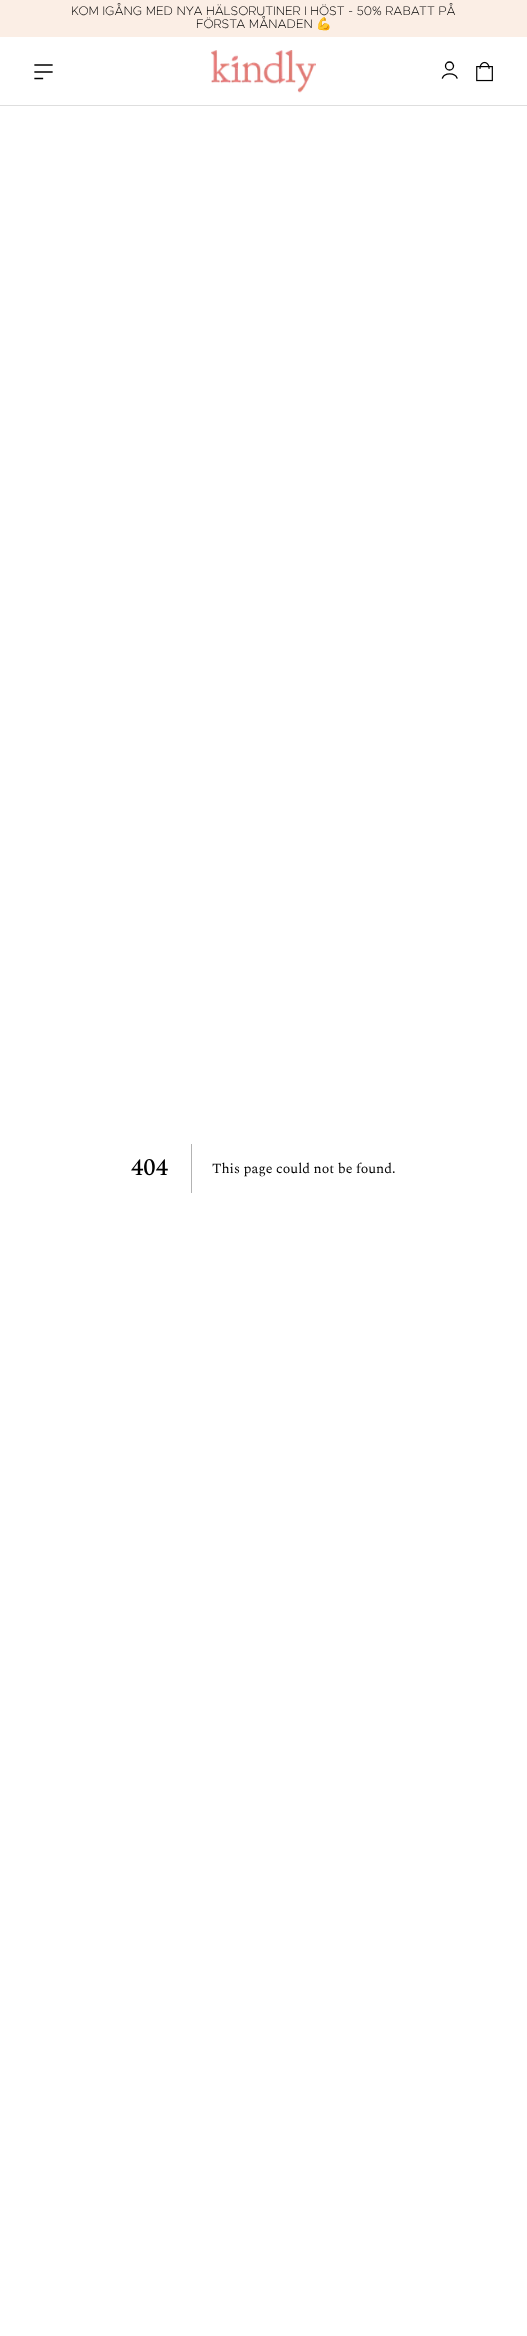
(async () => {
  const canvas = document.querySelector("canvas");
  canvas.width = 527;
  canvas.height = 2336;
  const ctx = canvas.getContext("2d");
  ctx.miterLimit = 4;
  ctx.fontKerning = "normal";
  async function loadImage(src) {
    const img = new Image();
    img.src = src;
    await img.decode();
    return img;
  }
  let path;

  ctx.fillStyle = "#ffffff";
  ctx.fillRect(0, 0, 527, 2336);
  ctx.fillStyle = "#dedede";
  ctx.fillRect(0, 105, 527, 1);
  ctx.fillStyle = "#fbeee5";
  ctx.fillRect(0, 0, 527, 37);
  path = new Path2D("M35 65H52M35 72H52M35 78.5H42.5");
  ctx.strokeStyle = "#000000";
  ctx.lineWidth = 1.3;
  ctx.lineCap = "square";
  ctx.stroke(path);
  ctx.drawImage(await loadImage("img/1.png"), 211, 50, 105, 43);
  path = new Path2D("M457 78C455 72.5 444.5 72.5 442.5 78");
  ctx.stroke(path);
  ctx.beginPath();
  ctx.arc(449.5, 66, 4, 0, Math.PI * 2);
  ctx.stroke();
  ctx.drawImage(await loadImage("img/2.png"), 476, 61, 17, 21);
  ctx.fillStyle = "#b3b3b3";
  ctx.fillRect(191, 1144, 1, 49);
  ctx.font = "200 12.5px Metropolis";
  ctx.fillStyle = "#000000";
  ctx.fillText("KOM IGÅNG MED NYA HÄLSORUTINER I HÖST - 50% RABATT PÅ", 71, 15);
  ctx.fillText("FÖRSTA MÅNADEN", 196, 28);
  ctx.font = "12.5px Noto Color Emoji";
  ctx.fillText("💪", 316, 28);
  ctx.font = "500 24px Spectral";
  ctx.fillText("404", 131, 1175);
  ctx.font = "14px Spectral";
  ctx.fillText("This page could not be found.", 212, 1173);
})();
